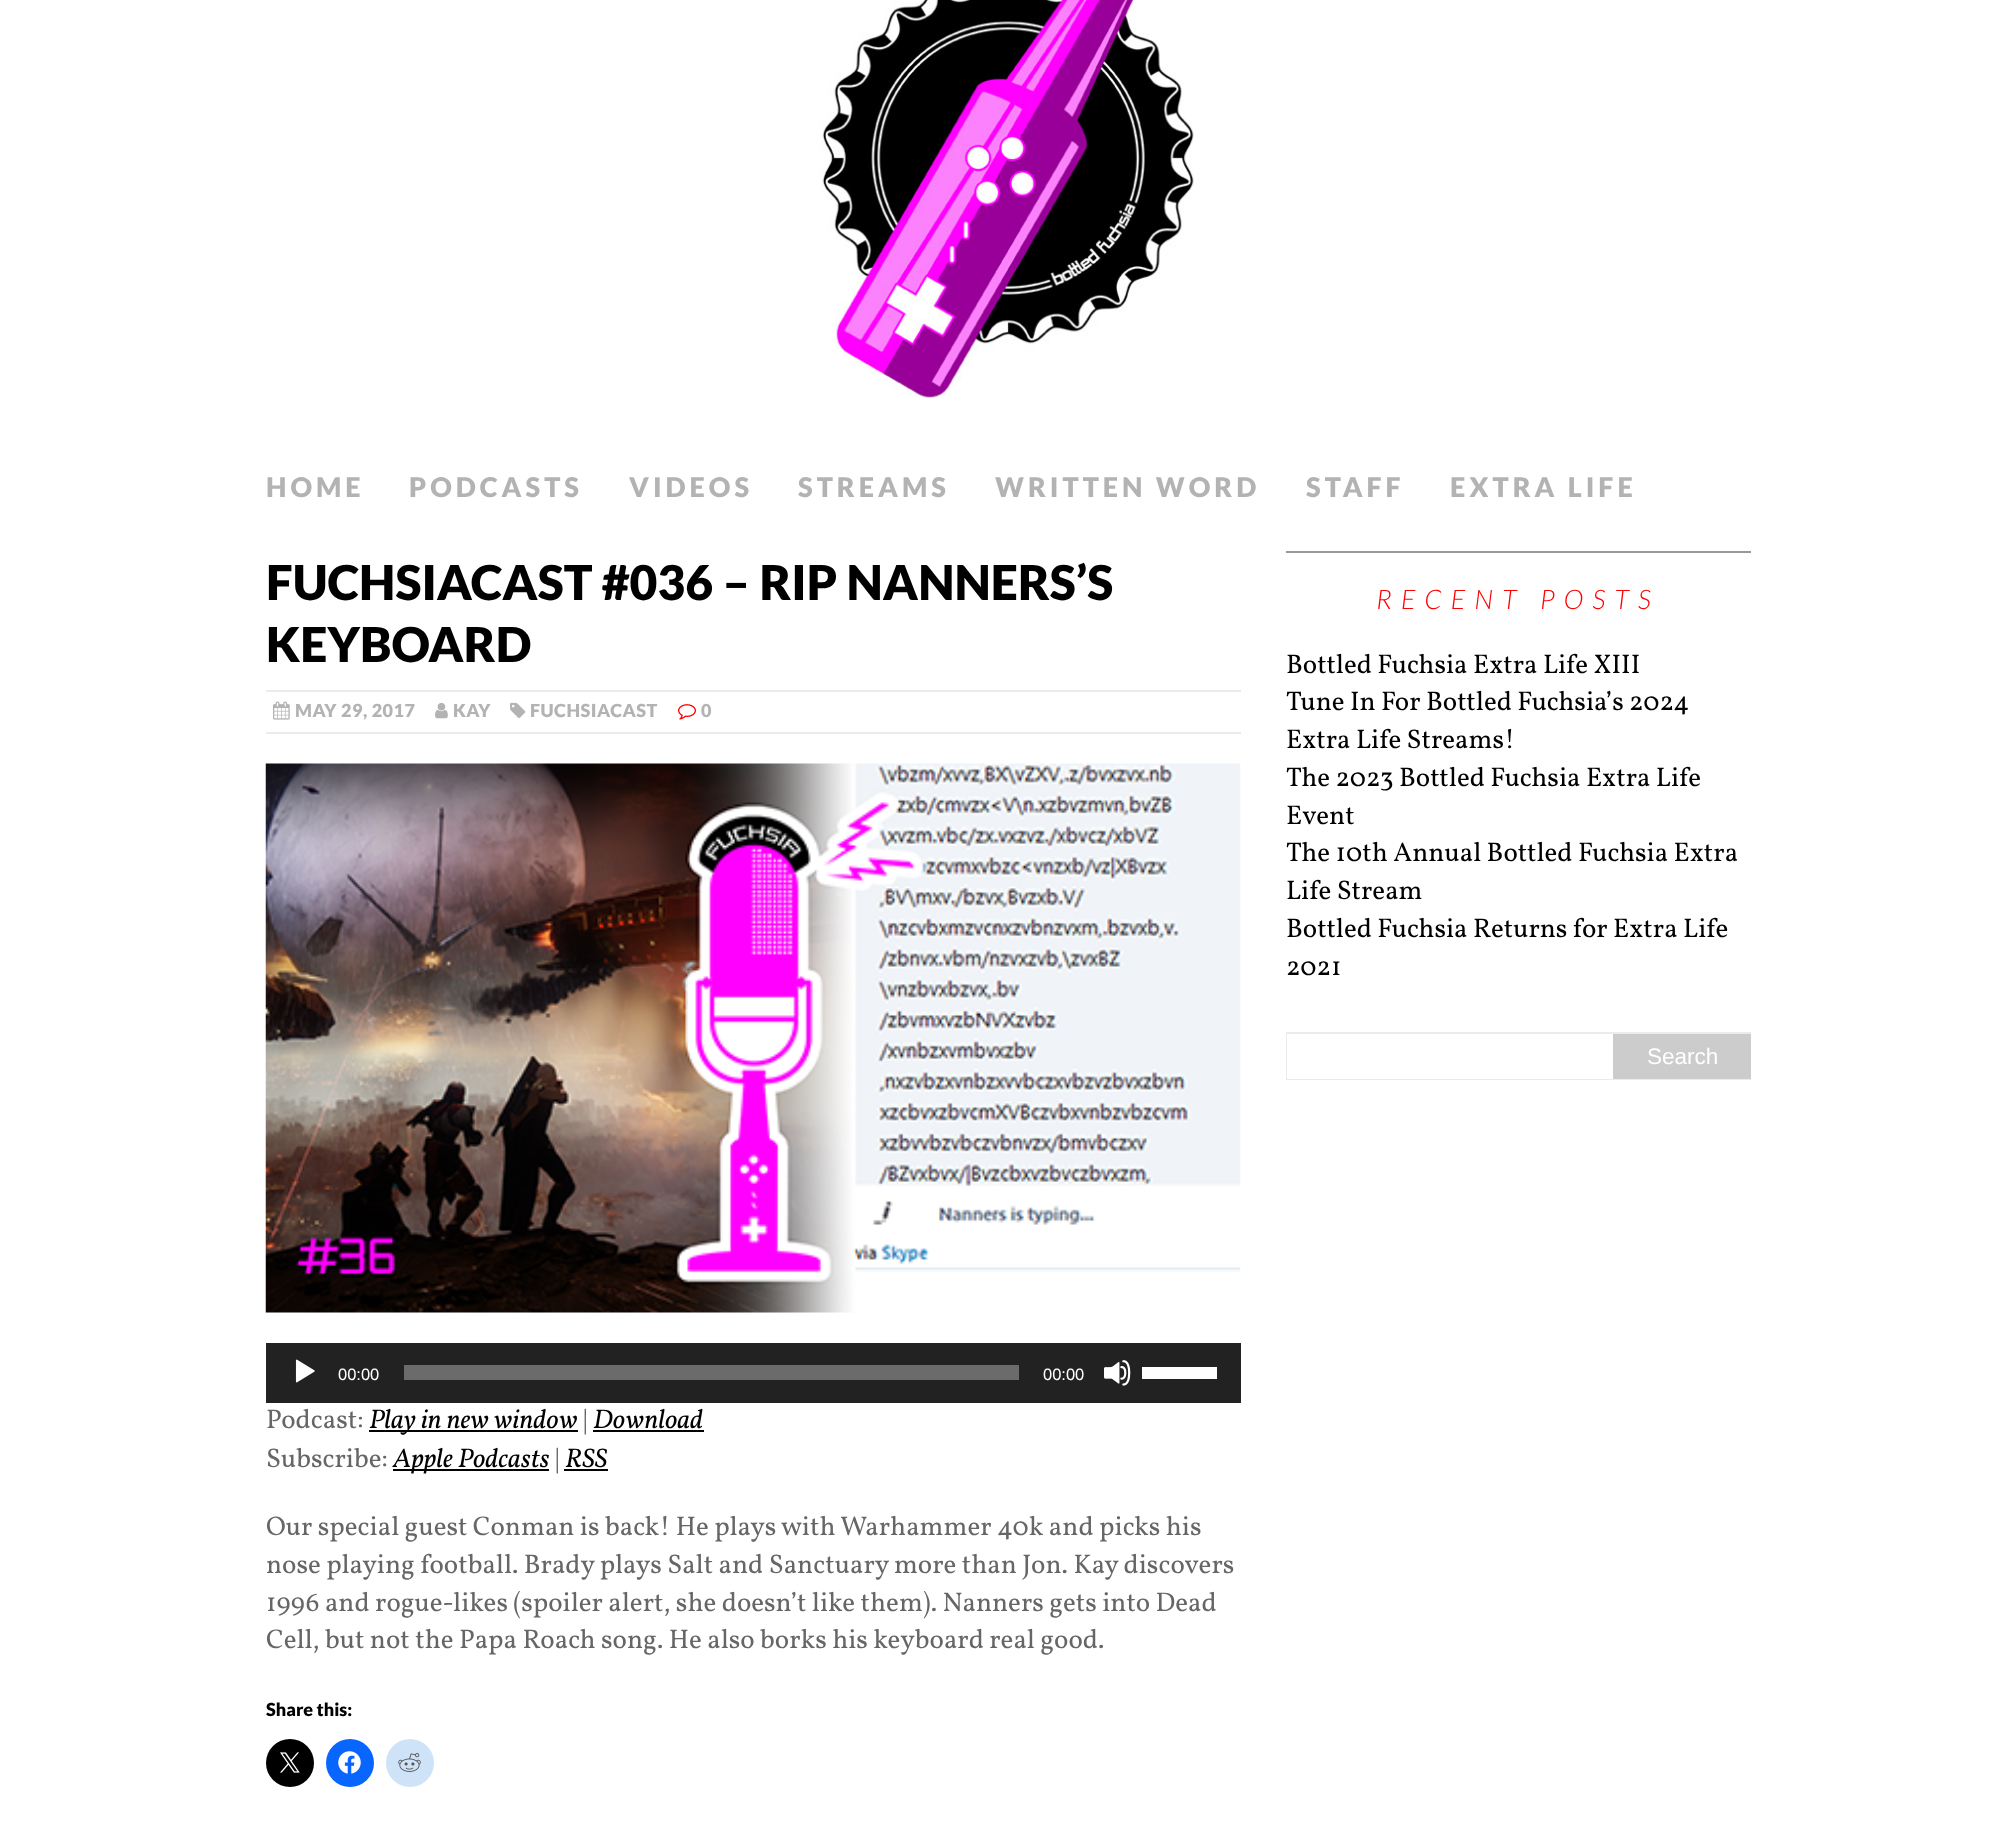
(async () => {
  const canvas = document.querySelector("canvas");
  canvas.width = 2015;
  canvas.height = 1829;
  const ctx = canvas.getContext("2d");
  ctx.miterLimit = 4;
  ctx.fontKerning = "normal";
  async function loadImage(src) {
    const img = new Image();
    img.src = src;
    await img.decode();
    return img;
  }

  ctx.fillStyle = "#ffffff";
  ctx.fillRect(0, 0, 2015, 1829);
  ctx.drawImage(await loadImage("img/1.png"), 820, 0, 374, 398);
  ctx.fillStyle = "#ebebeb";
  ctx.fillRect(266, 690, 975, 2);
  ctx.fillRect(266, 732, 975, 2);
  ctx.drawImage(await loadImage("img/2.png"), 273, 701, 17, 19);
  ctx.drawImage(await loadImage("img/3.png"), 435, 702, 13, 17);
  ctx.drawImage(await loadImage("img/4.png"), 510, 702, 16, 16);
  ctx.drawImage(await loadImage("img/5.png"), 678, 704, 18, 16);
  ctx.drawImage(await loadImage("img/6.png"), 265, 763, 976, 550);
  ctx.fillStyle = "#222222";
  ctx.fillRect(266, 1343, 975, 60);
  ctx.drawImage(await loadImage("img/7.png"), 295, 1359, 20, 24);
  ctx.fillStyle = "#6b6b6b";
  ctx.fillRect(404, 1365, 615, 15);
  ctx.drawImage(await loadImage("img/8.png"), 1104, 1360, 27, 26);
  for (const [x, y, w, h, color] of [
    [1142, 1367, 75, 12, "#ffffff"],
    [369, 1430, 209, 2, "#000000"],
    [593, 1430, 111, 2, "#000000"],
    [393, 1469, 156, 2, "#000000"],
    [564, 1469, 44, 2, "#000000"],
  ]) {
    ctx.fillStyle = color;
    ctx.fillRect(x, y, w, h);
  }
  ctx.beginPath();
  ctx.arc(290, 1763, 24, 0, Math.PI * 2);
  ctx.fill();
  ctx.drawImage(await loadImage("img/9.png"), 280, 1752, 20, 21);
  ctx.fillStyle = "#0866ff";
  ctx.beginPath();
  ctx.arc(350, 1763, 24, 0, Math.PI * 2);
  ctx.fill();
  ctx.drawImage(await loadImage("img/10.png"), 338, 1751, 23, 23);
  ctx.fillStyle = "#cee3f8";
  ctx.beginPath();
  ctx.arc(410, 1763, 24, 0, Math.PI * 2);
  ctx.fill();
  ctx.drawImage(await loadImage("img/11.png"), 398, 1753, 23, 19);
  ctx.fillStyle = "#999999";
  ctx.fillRect(1286, 551, 465, 2);
  ctx.save();
  ctx.beginPath();
  ctx.rect(1286, 1032, 465, 48);
  ctx.clip();
  ctx.strokeStyle = "#ebebeb";
  ctx.lineWidth = 2;
  ctx.strokeRect(1287, 1033, 466, 46);
  ctx.restore();
  ctx.fillStyle = "#ffffff";
  ctx.fillRect(1287, 1034, 326, 45);
  ctx.fillStyle = "#cccccc";
  ctx.fillRect(1613, 1034, 138, 45);
  ctx.letterSpacing = "4px";
  ctx.font = "900 27px Lato";
  ctx.fillStyle = "#b3b3b3";
  for (const [text, x, y] of [
    ["HOME", 266, 497],
    ["PODCASTS", 409, 497],
    ["VIDEOS", 629, 497],
    ["STREAMS", 798, 497],
    ["WRITTEN WORD", 995, 497],
    ["STAFF", 1306, 497],
    ["EXTRA LIFE", 1450, 497],
  ]) {
    ctx.fillText(text, x, y);
  }
  ctx.letterSpacing = "0px";
  ctx.font = "900 48px Lato";
  ctx.fillStyle = "#000000";
  ctx.fillText("FUCHSIACAST #036 – RIP NANNERS’S", 266, 600);
  ctx.fillText("KEYBOARD", 266, 662);
  ctx.letterSpacing = "0.5px";
  ctx.font = "900 18px Lato";
  ctx.fillStyle = "#b3b3b3";
  for (const [text, x, y] of [
    ["MAY 29, 2017", 295, 717],
    ["KAY", 453, 717],
    ["FUCHSIACAST", 530, 717],
    ["0", 701, 717],
  ]) {
    ctx.fillText(text, x, y);
  }
  ctx.letterSpacing = "0px";
  ctx.font = "16.5px Liberation Sans";
  ctx.fillStyle = "#ffffff";
  ctx.fillText("00:00", 338, 1380);
  ctx.fillText("00:00", 1043, 1380);
  ctx.font = "27px Vollkorn";
  ctx.fillStyle = "#666666";
  ctx.fillText("Podcast:", 266, 1428);
  ctx.font = "italic 27px Vollkorn";
  ctx.fillStyle = "#000000";
  ctx.fillText("Play in new window", 369, 1428);
  ctx.font = "27px Vollkorn";
  ctx.fillStyle = "#666666";
  ctx.fillText("|", 583, 1428);
  ctx.font = "italic 27px Vollkorn";
  ctx.fillStyle = "#000000";
  ctx.fillText("Download", 593, 1428);
  ctx.font = "27px Vollkorn";
  ctx.fillStyle = "#666666";
  ctx.fillText("Subscribe:", 266, 1467);
  ctx.font = "italic 27px Vollkorn";
  ctx.fillStyle = "#000000";
  ctx.fillText("Apple Podcasts", 393, 1467);
  ctx.font = "27px Vollkorn";
  ctx.fillStyle = "#666666";
  ctx.fillText("|", 555, 1467);
  ctx.font = "italic 27px Vollkorn";
  ctx.fillStyle = "#000000";
  ctx.fillText("RSS", 565, 1467);
  ctx.font = "27px Vollkorn";
  ctx.fillStyle = "#666666";
  for (const [text, x, y] of [
    ["Our special guest Conman is back! He plays with Warhammer 40k and picks his", 266, 1535],
    ["nose playing football. Brady plays Salt and Sanctuary more than Jon. Kay discovers", 266, 1573],
    ["1996 and rogue-likes (spoiler alert, she doesn’t like them). Nanners gets into Dead", 266, 1611],
    ["Cell, but not the Papa Roach song. He also borks his keyboard real good.", 266, 1648],
  ]) {
    ctx.fillText(text, x, y);
  }
  ctx.font = "900 18px Lato";
  ctx.fillStyle = "#000000";
  ctx.fillText("Share this:", 266, 1716);
  ctx.letterSpacing = "9px";
  ctx.font = "italic 300 27px Lato";
  ctx.fillStyle = "#ff0000";
  ctx.fillText("RECENT POSTS", 1376, 609);
  ctx.letterSpacing = "0px";
  ctx.font = "27px Vollkorn";
  ctx.fillStyle = "#000000";
  for (const [text, x, y] of [
    ["Bottled Fuchsia Extra Life XIII", 1286, 673],
    ["Tune In For Bottled Fuchsia’s 2024", 1286, 710],
    ["Extra Life Streams!", 1286, 748],
    ["The 2023 Bottled Fuchsia Extra Life", 1286, 786],
    ["Event", 1286, 824],
    ["The 10th Annual Bottled Fuchsia Extra", 1286, 861],
    ["Life Stream", 1286, 899],
    ["Bottled Fuchsia Returns for Extra Life", 1286, 937],
    ["2021", 1286, 975],
  ]) {
    ctx.fillText(text, x, y);
  }
  ctx.font = "22.5px Liberation Sans";
  ctx.fillStyle = "#ffffff";
  ctx.fillText("Search", 1647, 1064);
})();
